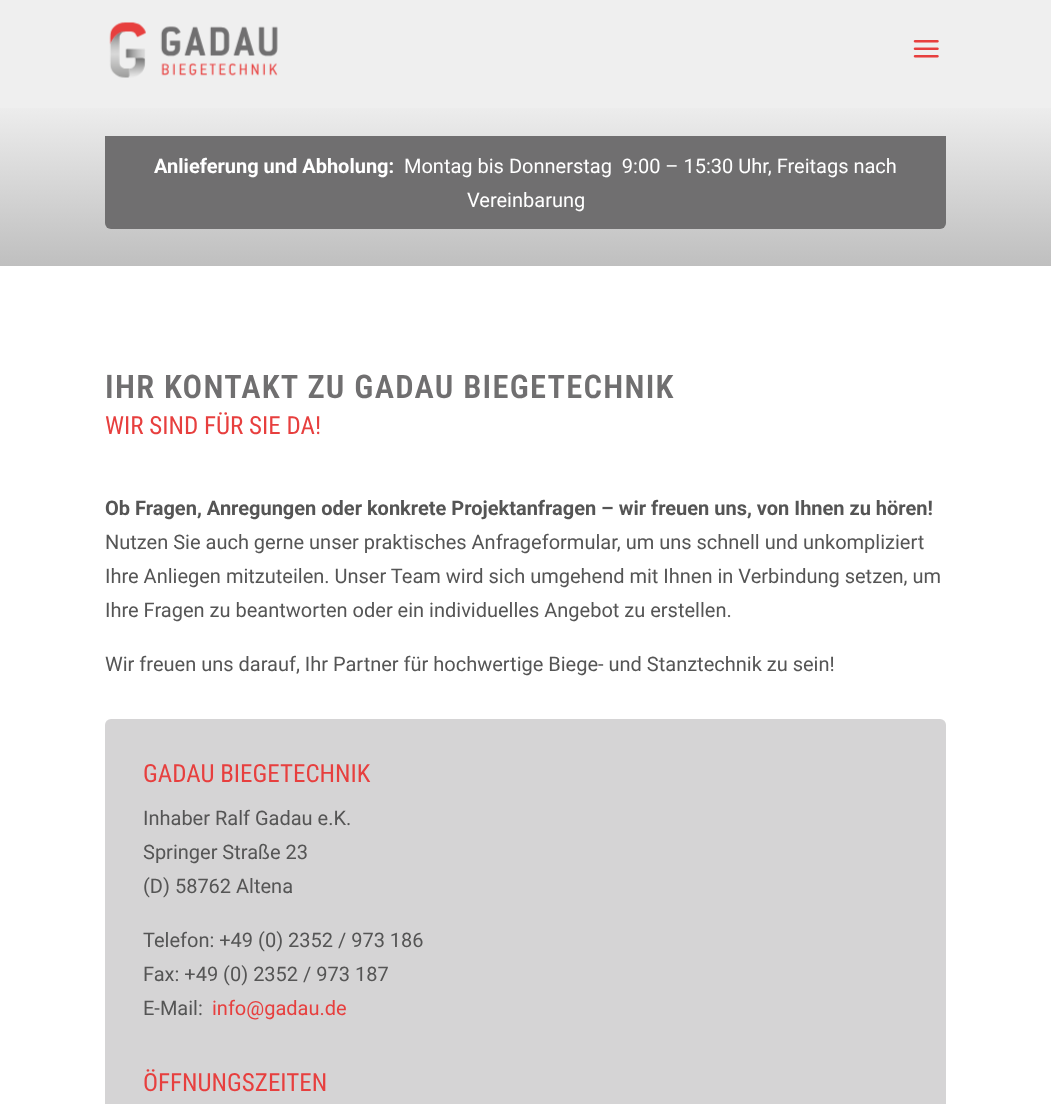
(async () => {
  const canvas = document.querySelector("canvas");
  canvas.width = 1051;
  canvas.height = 1104;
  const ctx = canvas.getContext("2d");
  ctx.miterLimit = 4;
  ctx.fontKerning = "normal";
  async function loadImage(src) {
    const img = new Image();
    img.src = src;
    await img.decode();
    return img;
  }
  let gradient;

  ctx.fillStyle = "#efefef";
  ctx.fillRect(0, 0, 1051, 1104);
  ctx.drawImage(await loadImage("img/1.png"), 109, 22, 169, 56);
  ctx.drawImage(await loadImage("img/2.png"), 913, 40, 26, 18);
  gradient = ctx.createLinearGradient(526, 99, 526, 266);
  gradient.addColorStop(0, "#efefef");
  gradient.addColorStop(1, "#bfbfbf");
  ctx.fillStyle = gradient;
  ctx.fillRect(0, 108, 1051, 158);
  ctx.fillStyle = "#706f70";
  ctx.beginPath();
  ctx.roundRect(105, 136, 841, 93, [0, 0, 6, 6]);
  ctx.fill();
  ctx.fillStyle = "#ffffff";
  ctx.fillRect(0, 266, 1051, 838);
  ctx.fillStyle = "#d5d4d5";
  ctx.beginPath();
  ctx.roundRect(105, 719, 841, 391, 6);
  ctx.fill();
  ctx.font = "bold 20px Roboto";
  ctx.fillStyle = "#ffffff";
  ctx.fillText("Anlieferung und Abholung:", 154, 173);
  ctx.font = "20px Roboto";
  ctx.fillText("Montag bis Donnerstag  9:00 – 15:30 Uhr, Freitags nach", 404, 173);
  ctx.fillText("Vereinbarung", 467, 207);
  ctx.letterSpacing = "1.25px";
  ctx.font = "600 32.5px Roboto Condensed";
  ctx.fillStyle = "#706f70";
  ctx.fillText("IHR KONTAKT ZU GADAU BIEGETECHNIK", 105, 398);
  ctx.letterSpacing = "0px";
  ctx.font = "25px Roboto Condensed";
  ctx.fillStyle = "#e73f3e";
  ctx.fillText("WIR SIND FÜR SIE DA!", 105, 434);
  ctx.font = "bold 20px Roboto";
  ctx.fillStyle = "#555555";
  ctx.fillText("Ob Fragen, Anregungen oder konkrete Projektanfragen – wir freuen uns, von Ihnen zu hören!", 105, 515);
  ctx.font = "20px Roboto";
  for (const [text, x, y] of [
    ["Nutzen Sie auch gerne unser praktisches Anfrageformular, um uns schnell und unkompliziert", 105, 549],
    ["Ihre Anliegen mitzuteilen. Unser Team wird sich umgehend mit Ihnen in Verbindung setzen, um", 105, 583],
    ["Ihre Fragen zu beantworten oder ein individuelles Angebot zu erstellen.", 105, 617],
    ["Wir freuen uns darauf, Ihr Partner für hochwertige Biege- und Stanztechnik zu sein!", 105, 671],
  ]) {
    ctx.fillText(text, x, y);
  }
  ctx.font = "25px Roboto Condensed";
  ctx.fillStyle = "#e73f3e";
  ctx.fillText("GADAU BIEGETECHNIK", 143, 782);
  ctx.font = "20px Roboto";
  ctx.fillStyle = "#555555";
  for (const [text, x, y] of [
    ["Inhaber Ralf Gadau e.K.", 143, 825],
    ["Springer Straße 23", 143, 859],
    ["(D) 58762 Altena", 143, 893],
    ["Telefon: +49 (0) 2352 / 973 186", 143, 947],
    ["Fax: +49 (0) 2352 / 973 187", 143, 981],
    ["E-Mail:", 143, 1015],
  ]) {
    ctx.fillText(text, x, y);
  }
  ctx.fillStyle = "#e73f3e";
  ctx.fillText("info@gadau.de", 212, 1015);
  ctx.font = "25px Roboto Condensed";
  ctx.fillText("ÖFFNUNGSZEITEN", 143, 1091);
})();
